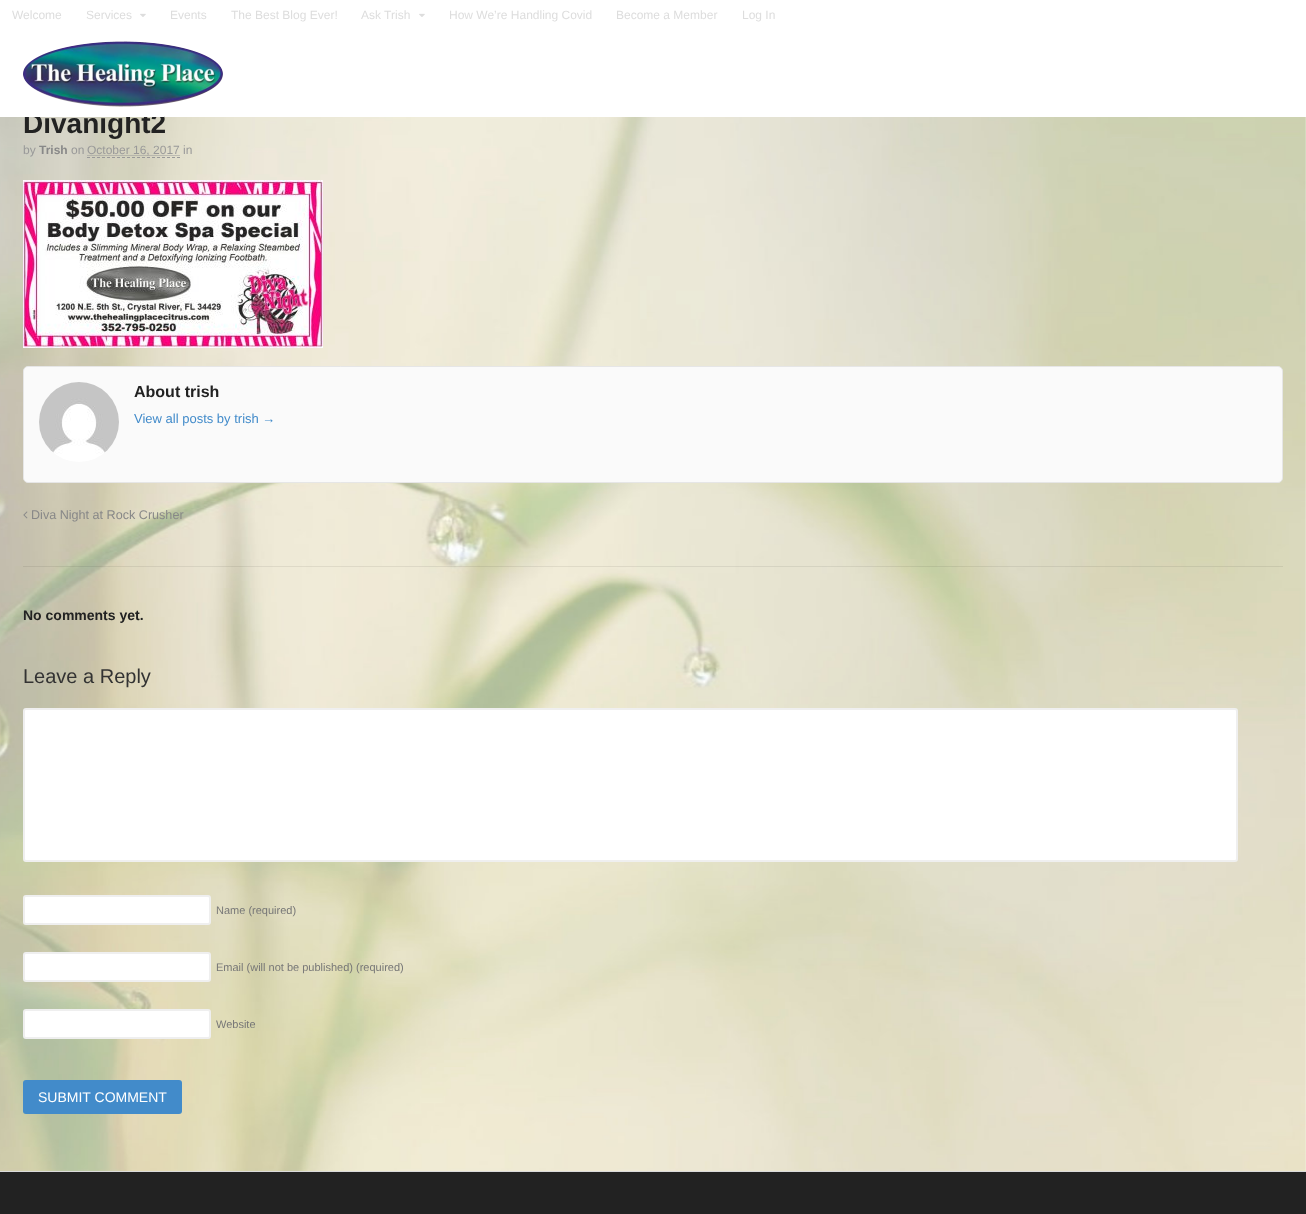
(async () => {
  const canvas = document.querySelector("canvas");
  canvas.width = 1306;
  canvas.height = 1214;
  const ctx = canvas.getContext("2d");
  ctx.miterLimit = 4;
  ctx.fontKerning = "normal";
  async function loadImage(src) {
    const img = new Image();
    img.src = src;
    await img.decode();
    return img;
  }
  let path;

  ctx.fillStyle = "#ffffff";
  ctx.fillRect(0, 0, 1306, 1214);
  ctx.drawImage(await loadImage("img/1.png"), 0, 117, 1306, 1054);
  ctx.drawImage(await loadImage("img/2.png"), 140, 13, 6, 4);
  ctx.drawImage(await loadImage("img/2.png"), 419, 13, 6, 4);
  ctx.drawImage(await loadImage("img/3.png"), 23, 41, 200, 66);
  path = new Path2D("M87 157.5H180");
  ctx.strokeStyle = "#999999";
  ctx.setLineDash([3, 2]);
  ctx.stroke(path);
  path = new Path2D("M87.5 155.5H180");
  ctx.setLineDash([1, 1]);
  ctx.stroke(path);
  ctx.drawImage(await loadImage("img/4.png"), 23, 180, 300, 168);
  ctx.fillStyle = "#fafafa";
  ctx.beginPath();
  ctx.roundRect(23.5, 366.5, 1259, 116, 4.5);
  ctx.fill();
  ctx.strokeStyle = "#e6e6e6";
  ctx.setLineDash([]);
  ctx.stroke();
  ctx.drawImage(await loadImage("img/5.png"), 39, 382, 80, 80);
  ctx.drawImage(await loadImage("img/6.png"), 23, 511, 5, 8);
  ctx.fillStyle = "rgba(0, 0, 0, 0.07)";
  ctx.fillRect(23, 566, 1260, 1);
  ctx.fillStyle = "#ffffff";
  ctx.beginPath();
  ctx.roundRect(24, 709, 1213, 152, 2);
  ctx.fill();
  ctx.strokeStyle = "#efefef";
  ctx.lineWidth = 2;
  ctx.stroke();
  ctx.beginPath();
  ctx.roundRect(24, 896, 186, 28, 2);
  ctx.fill();
  ctx.stroke();
  ctx.beginPath();
  ctx.roundRect(24, 953, 186, 28, 2);
  ctx.fill();
  ctx.stroke();
  ctx.beginPath();
  ctx.roundRect(24, 1010, 186, 28, 2);
  ctx.fill();
  ctx.stroke();
  ctx.fillStyle = "#428bca";
  ctx.beginPath();
  ctx.roundRect(23, 1080, 159, 34, 3);
  ctx.fill();
  ctx.fillStyle = "#222222";
  ctx.fillRect(0, 1172, 1306, 42);
  ctx.fillStyle = "#dbdbdb";
  ctx.fillRect(0, 1171, 1306, 1);
  ctx.font = "12px Liberation Sans";
  ctx.fillStyle = "#dddddd";
  for (const [text, x, y] of [
    ["Welcome", 12, 19],
    ["Services", 86, 19],
    ["Events", 170, 19],
    ["The Best Blog Ever!", 231, 19],
    ["Ask Trish", 361, 19],
    ["How We’re Handling Covid", 449, 19],
    ["Become a Member", 616, 19],
    ["Log In", 742, 19],
  ]) {
    ctx.fillText(text, x, y);
  }
  ctx.font = "bold 28px Liberation Sans";
  ctx.fillStyle = "#222222";
  ctx.fillText("Divanight2", 23, 133);
  ctx.fillStyle = "#ffffff";
  ctx.fillRect(24, 112, 140, 5);
  ctx.font = "12px Liberation Sans";
  ctx.fillStyle = "#999999";
  ctx.fillText("by", 23, 154);
  ctx.font = "bold 12px Liberation Sans";
  ctx.fillStyle = "#888888";
  ctx.fillText("Trish", 39, 154);
  ctx.font = "12px Liberation Sans";
  ctx.fillStyle = "#999999";
  ctx.fillText("on", 71, 154);
  ctx.fillText("October 16, 2017 in", 87, 154);
  ctx.font = "bold 16px Liberation Sans";
  ctx.fillStyle = "#222222";
  ctx.fillText("About trish", 134, 397);
  ctx.font = "13px Liberation Sans";
  ctx.fillStyle = "#428bca";
  ctx.fillText("View all posts by trish →", 134, 423);
  ctx.font = "12.6px Liberation Sans";
  ctx.fillStyle = "#888888";
  ctx.fillText("Diva Night at Rock Crusher", 31, 519);
  ctx.font = "bold 14px Liberation Sans";
  ctx.fillStyle = "#222222";
  ctx.fillText("No comments yet.", 23, 620);
  ctx.font = "20px Liberation Sans";
  ctx.fillStyle = "#333333";
  ctx.fillText("Leave a Reply", 23, 683);
  ctx.font = "11px Liberation Sans";
  ctx.fillStyle = "#777777";
  for (const [text, x, y] of [
    ["Name (required)", 216, 914],
    ["Email (will not be published) (required)", 216, 971],
    ["Website", 216, 1028],
  ]) {
    ctx.fillText(text, x, y);
  }
  ctx.font = "14px Liberation Sans";
  ctx.fillStyle = "#ffffff";
  ctx.fillText("SUBMIT COMMENT", 38, 1102);
})();
